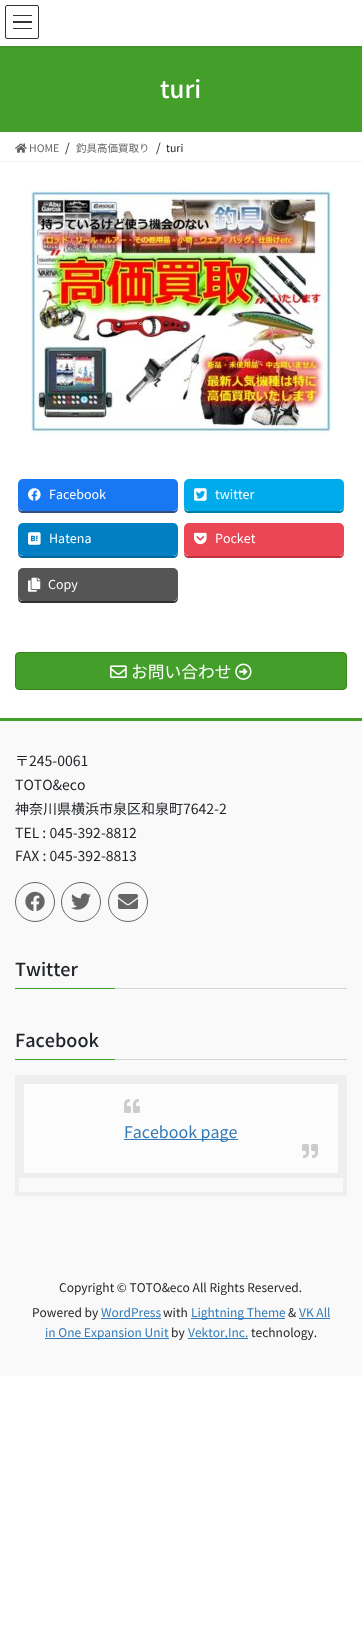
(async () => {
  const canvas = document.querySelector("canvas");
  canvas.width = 362;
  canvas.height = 1648;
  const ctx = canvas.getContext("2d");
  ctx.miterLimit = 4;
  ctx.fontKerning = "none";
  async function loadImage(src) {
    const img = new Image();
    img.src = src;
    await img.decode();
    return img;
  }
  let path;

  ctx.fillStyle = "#ffffff";
  ctx.fillRect(0, 0, 362, 1648);
  ctx.fillStyle = "#439e2a";
  ctx.fillRect(0, 46, 362, 86);
  ctx.save();
  ctx.beginPath();
  ctx.rect(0, 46, 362, 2);
  ctx.clip();
  ctx.fillStyle = "rgba(0, 0, 0, 0.1)";
  ctx.filter = "blur(1.5px)";
  ctx.beginPath();
  ctx.rect(0, 1, 362, 46);
  ctx.fill();
  ctx.filter = "none";
  ctx.restore();
  for (const [x, y, w, h, color] of [
    [13, 15, 19, 1, "#333333"],
    [13, 21, 19, 2, "#333333"],
    [13, 28, 19, 1, "#333333"],
  ]) {
    ctx.fillStyle = color;
    ctx.fillRect(x, y, w, h);
  }
  ctx.beginPath();
  ctx.roundRect(5.5, 5.5, 33, 33, 1.5);
  ctx.strokeStyle = "#333333";
  ctx.stroke();
  ctx.fillStyle = "#f2f2f2";
  ctx.fillRect(0, 161, 362, 1);
  ctx.drawImage(await loadImage("img/1.png"), 15, 143, 12, 10);
  ctx.drawImage(await loadImage("img/2.png"), 31, 190, 300, 244);
  ctx.fillStyle = "#344e84";
  path = new Path2D("M18 506V508C18 511 20 513 23 513H173C176 513 178 511 178 508V506C178 509 176 511 173 511H23C20 511 18 509 18 506Z");
  ctx.fill(path);
  ctx.fillStyle = "#1877f2";
  ctx.beginPath();
  ctx.roundRect(18, 479, 160, 32, 5);
  ctx.fill();
  ctx.drawImage(await loadImage("img/3.png"), 28, 488, 13, 13);
  ctx.fillStyle = "#007eaa";
  path = new Path2D("M184 506V508C184 511 186 513 189 513H339C342 513 344 511 344 508V506C344 509 342 511 339 511H189C186 511 184 509 184 506Z");
  ctx.fill(path);
  ctx.fillStyle = "#00abec";
  ctx.beginPath();
  ctx.roundRect(184, 479, 160, 32, 5);
  ctx.fill();
  ctx.drawImage(await loadImage("img/4.png"), 194, 488, 13, 13);
  ctx.fillStyle = "#00679f";
  path = new Path2D("M18 551V553C18 556 20 558 23 558H173C176 558 178 556 178 553V551C178 554 176 556 173 556H23C20 556 18 554 18 551Z");
  ctx.fill(path);
  ctx.fillStyle = "#007fc5";
  ctx.beginPath();
  ctx.roundRect(18, 523, 160, 33, 5);
  ctx.fill();
  ctx.drawImage(await loadImage("img/5.png"), 28, 532, 13, 13);
  ctx.fillStyle = "#c1303c";
  path = new Path2D("M184 551V553C184 556 186 558 189 558H339C342 558 344 556 344 553V551C344 554 342 556 339 556H189C186 556 184 554 184 551Z");
  ctx.fill(path);
  ctx.fillStyle = "#ea4654";
  ctx.beginPath();
  ctx.roundRect(184, 523, 160, 33, 5);
  ctx.fill();
  ctx.drawImage(await loadImage("img/6.png"), 194, 532, 13, 13);
  ctx.fillStyle = "#333333";
  path = new Path2D("M18 596V598C18 601 20 603 23 603H173C176 603 178 601 178 598V596C178 599 176 601 173 601H23C20 601 18 599 18 596Z");
  ctx.fill(path);
  ctx.fillStyle = "#555555";
  ctx.beginPath();
  ctx.roundRect(18, 568, 160, 33, 5);
  ctx.fill();
  ctx.drawImage(await loadImage("img/7.png"), 28, 577, 13, 15);
  ctx.fillStyle = "#439e2a";
  ctx.beginPath();
  ctx.roundRect(15.5, 652.5, 331, 37, 3.5);
  ctx.fill();
  ctx.strokeStyle = "#38841a";
  ctx.stroke();
  ctx.drawImage(await loadImage("img/8.png"), 110, 665, 17, 13);
  ctx.drawImage(await loadImage("img/9.png"), 235, 663, 17, 17);
  ctx.fillStyle = "#f9f9f9";
  ctx.fillRect(0, 721, 362, 655);
  ctx.fillStyle = "#439e2a";
  ctx.fillRect(0, 718, 362, 3);
  ctx.beginPath();
  ctx.arc(35, 902, 19.5, 0, Math.PI * 2);
  ctx.strokeStyle = "#666666";
  ctx.stroke();
  ctx.drawImage(await loadImage("img/10.png"), 25, 891, 20, 20);
  ctx.beginPath();
  ctx.arc(81, 902, 19.5, 0, Math.PI * 2);
  ctx.stroke();
  ctx.drawImage(await loadImage("img/11.png"), 71, 893, 20, 17);
  ctx.beginPath();
  ctx.arc(128, 902, 19.5, 0, Math.PI * 2);
  ctx.stroke();
  ctx.drawImage(await loadImage("img/12.png"), 118, 894, 20, 15);
  for (const [x, y, w, h, color] of [
    [115, 988, 232, 1, "#d4d4d4"],
    [15, 988, 100, 1, "#439e2a"],
    [115, 1059, 232, 1, "#d4d4d4"],
    [15, 1059, 100, 1, "#439e2a"],
  ]) {
    ctx.fillStyle = color;
    ctx.fillRect(x, y, w, h);
  }
  ctx.strokeStyle = "#efefef";
  ctx.lineWidth = 4;
  ctx.strokeRect(17, 1077, 328, 117);
  ctx.fillStyle = "#fcfcfc";
  ctx.beginPath();
  ctx.rect(21.5, 1081.5, 319, 94);
  ctx.fill();
  ctx.strokeStyle = "#eeeeee";
  ctx.lineWidth = 5;
  ctx.stroke();
  ctx.drawImage(await loadImage("img/13.png"), 124, 1099, 16, 14);
  ctx.fillStyle = "#337ab7";
  ctx.fillRect(124, 1139, 114, 1);
  ctx.drawImage(await loadImage("img/14.png"), 302, 1144, 16, 14);
  for (const [x, y, w, h, color] of [
    [101, 1318, 60, 1, "#337ab7"],
    [191, 1318, 94, 1, "#337ab7"],
    [299, 1318, 31, 1, "#337ab7"],
    [45, 1338, 124, 1, "#337ab7"],
    [188, 1338, 60, 1, "#337ab7"],
  ]) {
    ctx.fillStyle = color;
    ctx.fillRect(x, y, w, h);
  }
  ctx.font = "500 24px Noto Sans JP";
  ctx.fillStyle = "#ffffff";
  ctx.fillText("turi", 160, 98);
  ctx.font = "10.5px Noto Sans JP";
  ctx.fillStyle = "#666666";
  ctx.fillText("HOME", 29, 152);
  ctx.font = "12px Noto Sans JP";
  ctx.fillStyle = "#212529";
  ctx.fillText("/", 65, 152);
  ctx.font = "10.5px Noto Sans JP";
  ctx.fillStyle = "#666666";
  ctx.fillText("釣具高価買取り", 76, 152);
  ctx.font = "12px Noto Sans JP";
  ctx.fillStyle = "#212529";
  ctx.fillText("/", 156, 152);
  ctx.font = "10.5px Noto Sans JP";
  ctx.fillText("turi", 166, 152);
  ctx.font = "12.5px Noto Sans JP";
  ctx.fillStyle = "#ffffff";
  for (const [text, x, y] of [
    ["Facebook", 49, 499],
    ["twitter", 215, 499],
    ["Hatena", 49, 543],
    ["Pocket", 215, 543],
    ["Copy", 48, 589],
  ]) {
    ctx.fillText(text, x, y);
  }
  ctx.font = "16.75px Noto Sans JP";
  ctx.fillText("お問い合わせ", 131, 678);
  ctx.font = "14px Noto Sans JP";
  ctx.fillStyle = "#212529";
  for (const [text, x, y] of [
    ["〒245-0061", 15, 766],
    ["TOTO&eco", 15, 790],
    ["神奈川県横浜市泉区和泉町7642-2", 15, 814],
    ["TEL : 045-392-8812", 15, 838],
    ["FAX : 045-392-8813", 15, 861],
  ]) {
    ctx.fillText(text, x, y);
  }
  ctx.font = "500 18px Noto Sans JP";
  ctx.fillText("Twitter", 15, 976);
  ctx.fillText("Facebook", 15, 1047);
  ctx.font = "16px Noto Sans JP";
  ctx.fillStyle = "#337ab7";
  ctx.fillText("Facebook page", 124, 1138);
  ctx.font = "12px Noto Sans JP";
  ctx.fillStyle = "#212529";
  ctx.fillText("Copyright © TOTO&eco All Rights Reserved.", 59, 1292);
  ctx.fillText("Powered by", 32, 1317);
  ctx.fillStyle = "#337ab7";
  ctx.fillText("WordPress", 101, 1317);
  ctx.fillStyle = "#212529";
  ctx.fillText("with", 163, 1317);
  ctx.fillStyle = "#337ab7";
  ctx.fillText("Lightning Theme", 191, 1317);
  ctx.fillStyle = "#212529";
  ctx.fillText("&", 288, 1317);
  ctx.fillStyle = "#337ab7";
  ctx.fillText("VK All", 299, 1317);
  ctx.fillText("in One Expansion Unit", 45, 1337);
  ctx.fillStyle = "#212529";
  ctx.fillText("by", 171, 1337);
  ctx.fillStyle = "#337ab7";
  ctx.fillText("Vektor,Inc.", 188, 1337);
  ctx.fillStyle = "#212529";
  ctx.fillText("technology.", 251, 1337);
})();
